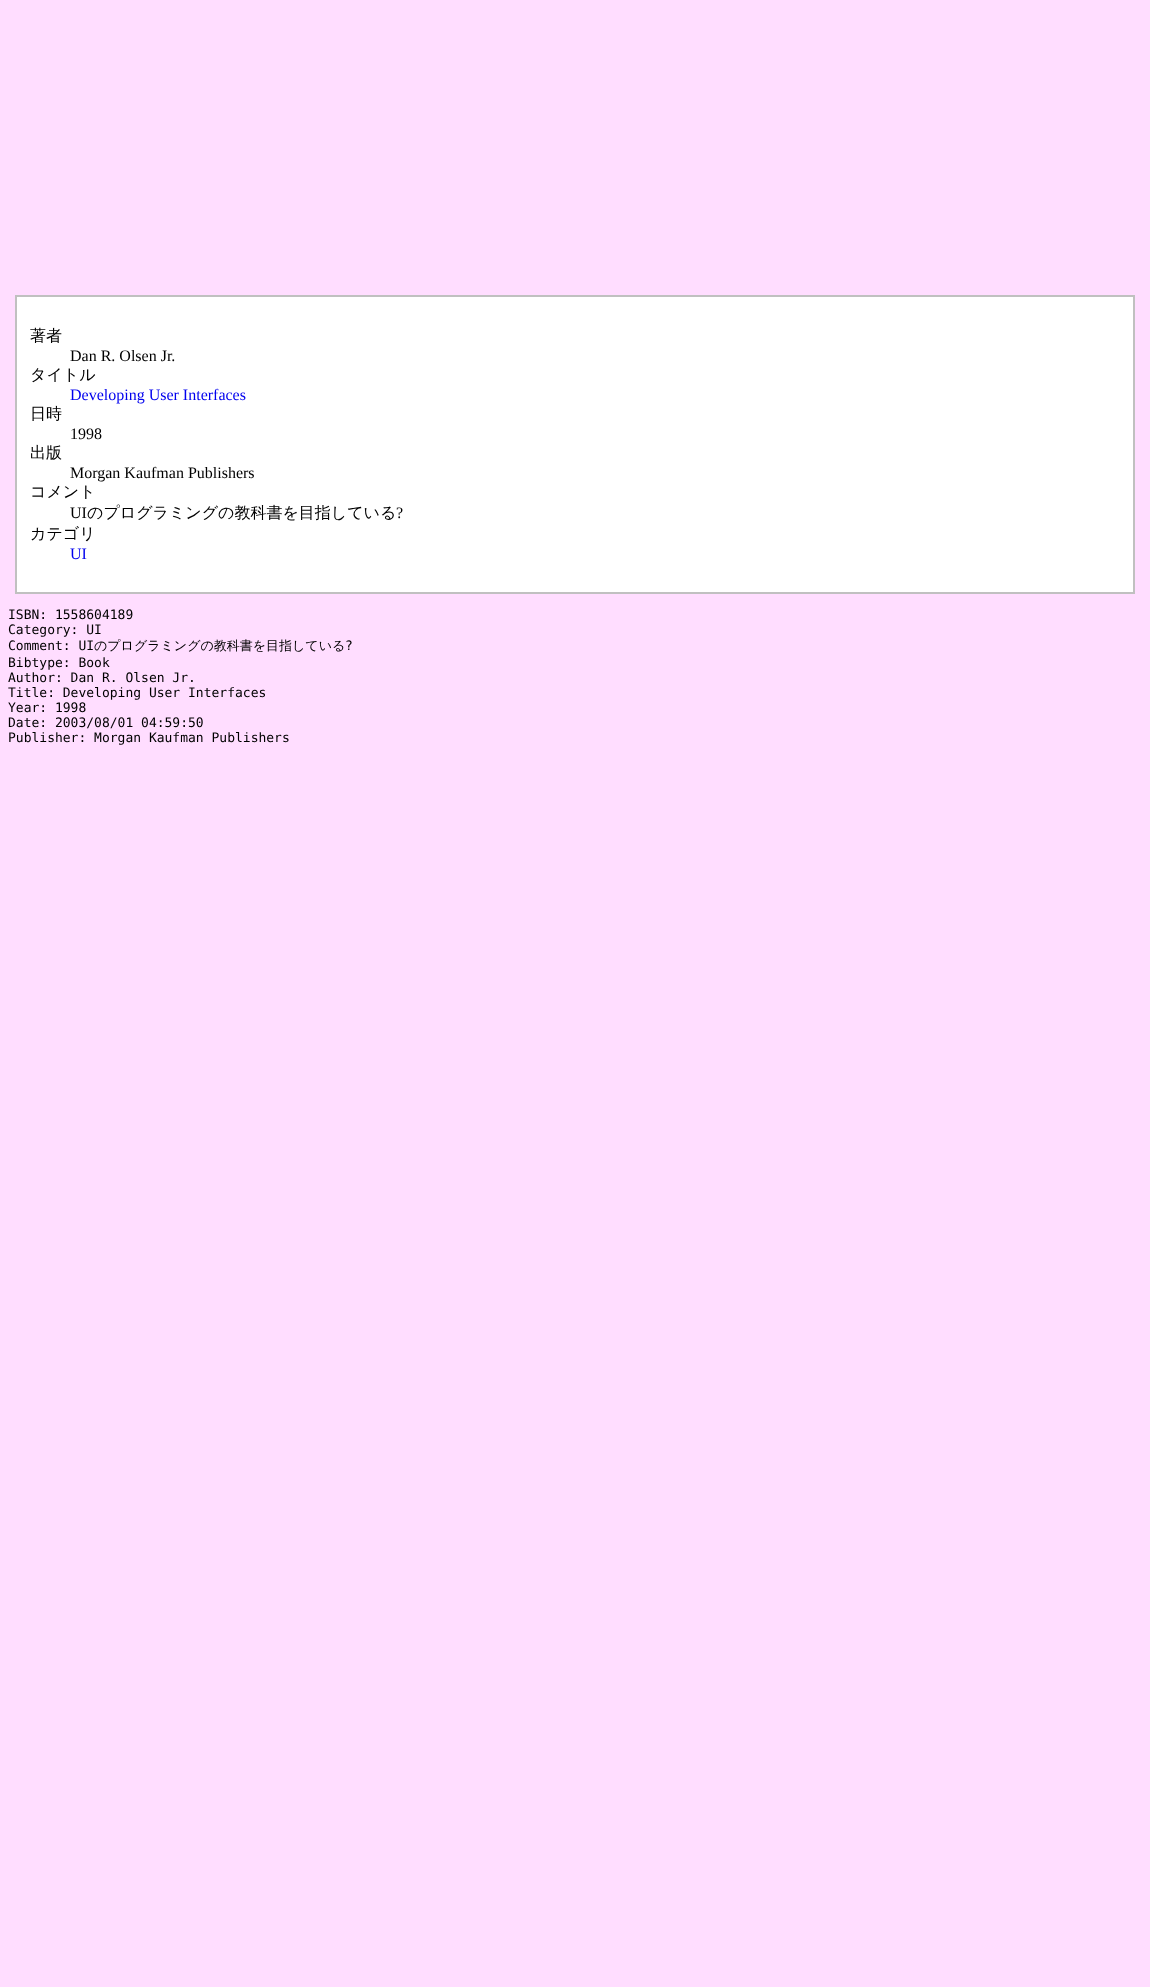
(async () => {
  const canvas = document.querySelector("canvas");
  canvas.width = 1150;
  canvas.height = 1987;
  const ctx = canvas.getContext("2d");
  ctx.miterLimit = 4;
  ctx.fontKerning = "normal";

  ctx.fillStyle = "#ffddff";
  ctx.fillRect(0, 0, 1150, 1987);
  ctx.fillStyle = "#ffffff";
  ctx.beginPath();
  ctx.rect(16, 296, 1118, 297);
  ctx.fill();
  ctx.strokeStyle = "#c0c0c0";
  ctx.lineWidth = 2;
  ctx.stroke();
  ctx.font = "500 16px WenQuanYi Zen Hei";
  ctx.fillStyle = "#000000";
  ctx.fillText("著者", 30, 341);
  ctx.font = "16px Liberation Serif";
  ctx.fillText("Dan R. Olsen Jr.", 70, 361);
  ctx.font = "500 16px WenQuanYi Zen Hei";
  ctx.fillText("タイトル", 30, 380);
  ctx.font = "16px Liberation Serif";
  ctx.fillStyle = "#0000ee";
  ctx.fillText("Developing User Interfaces", 70, 400);
  ctx.font = "500 16px WenQuanYi Zen Hei";
  ctx.fillStyle = "#000000";
  ctx.fillText("日時", 30, 419);
  ctx.font = "16px Liberation Serif";
  ctx.fillText("1998", 70, 439);
  ctx.font = "500 16px WenQuanYi Zen Hei";
  ctx.fillText("出版", 30, 458);
  ctx.font = "16px Liberation Serif";
  ctx.fillText("Morgan Kaufman Publishers", 70, 478);
  ctx.font = "500 16px WenQuanYi Zen Hei";
  ctx.fillText("コメント", 30, 497);
  ctx.font = "16px Liberation Serif";
  ctx.fillText("UI", 70, 518);
  ctx.font = "500 16px WenQuanYi Zen Hei";
  ctx.fillText("のプログラミングの教科書を目指している", 87, 518);
  ctx.font = "16px Liberation Serif";
  ctx.fillText("?", 396, 518);
  ctx.font = "500 16px WenQuanYi Zen Hei";
  ctx.fillText("カテゴリ", 30, 539);
  ctx.font = "16px Liberation Serif";
  ctx.fillStyle = "#0000ee";
  ctx.fillText("UI", 70, 559);
  ctx.font = "13px DejaVu Sans Mono";
  ctx.fillStyle = "#000000";
  for (const [text, x, y] of [
    ["ISBN: 1558604189", 8, 619],
    ["Category: UI", 8, 634],
    ["Comment: UI", 8, 650],
  ]) {
    ctx.fillText(text, x, y);
  }
  ctx.font = "500 13px WenQuanYi Zen Hei";
  ctx.fillText("のプログラミングの教科書を目指している", 94, 650);
  ctx.font = "13px DejaVu Sans Mono";
  for (const [text, x, y] of [
    ["?", 345, 650],
    ["Bibtype: Book", 8, 667],
    ["Author: Dan R. Olsen Jr.", 8, 682],
    ["Title: Developing User Interfaces", 8, 697],
    ["Year: 1998", 8, 712],
    ["Date: 2003/08/01 04:59:50", 8, 727],
    ["Publisher: Morgan Kaufman Publishers", 8, 742],
  ]) {
    ctx.fillText(text, x, y);
  }
})();
